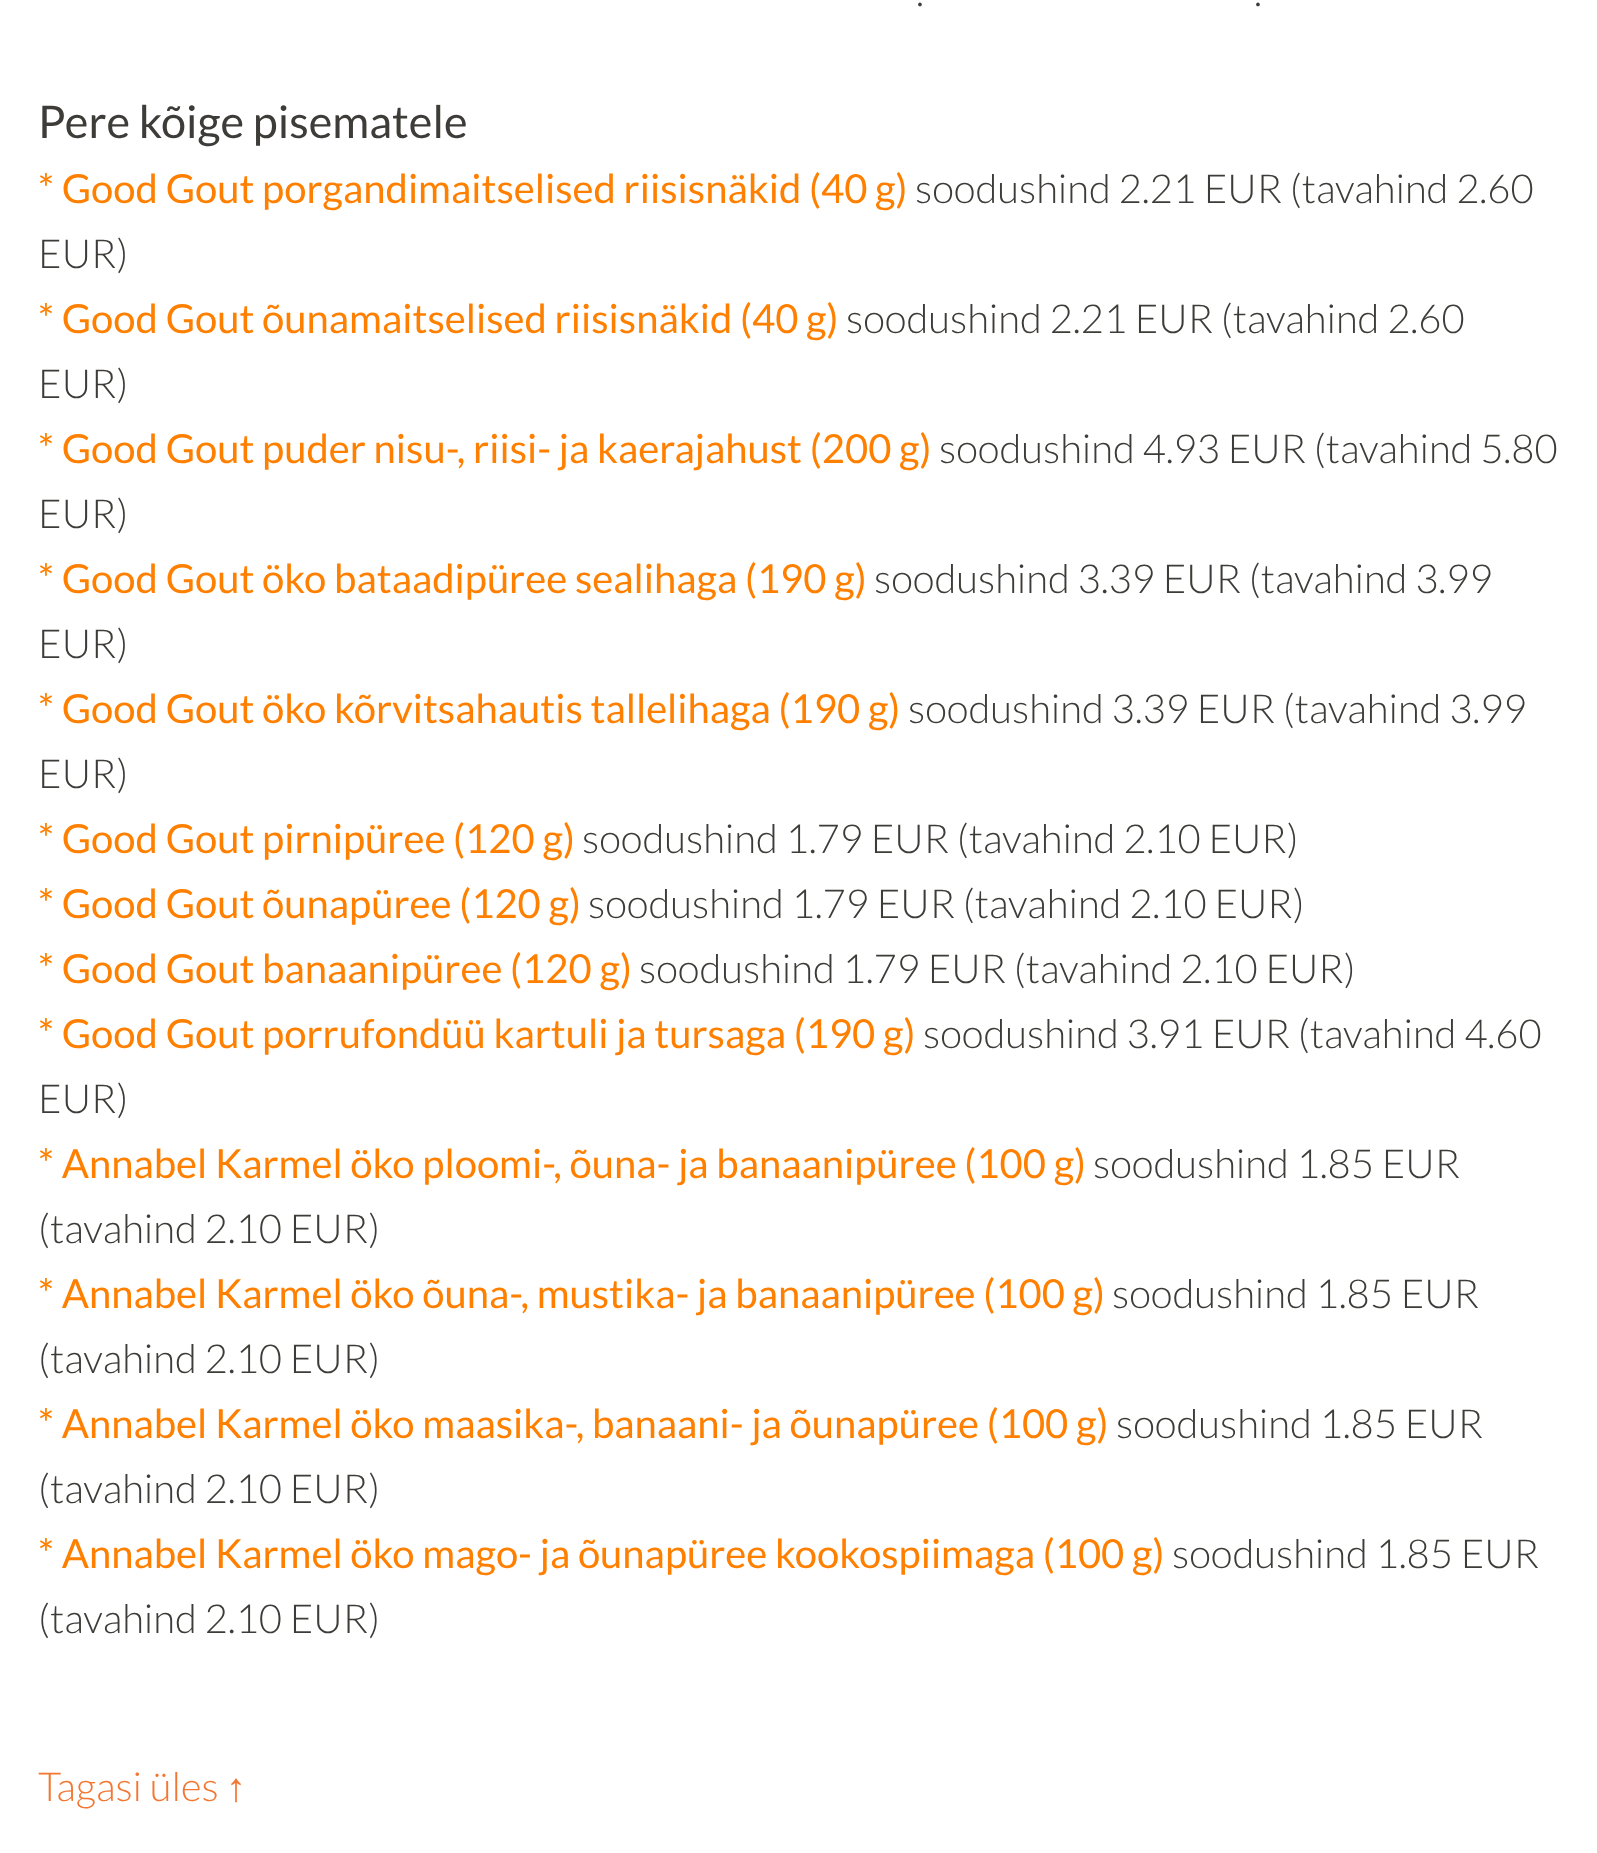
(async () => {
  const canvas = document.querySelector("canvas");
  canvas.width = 1597;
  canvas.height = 1853;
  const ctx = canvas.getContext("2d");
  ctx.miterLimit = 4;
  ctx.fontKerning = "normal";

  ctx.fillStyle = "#ffffff";
  ctx.fillRect(0, 0, 1597, 1853);
  ctx.font = "300 40px Lato";
  ctx.fillStyle = "#3d3c38";
  ctx.fillText(".", 916, 6);
  ctx.fillText(".", 1254, 6);
  ctx.font = "45px Lato";
  ctx.fillText("Pere kõige pisematele", 38, 138);
  ctx.font = "40px Lato";
  ctx.fillStyle = "#ff8000";
  ctx.fillText("* Good Gout porgandimaitselised riisisnäkid (40 g)", 38, 203);
  ctx.font = "300 40px Lato";
  ctx.fillStyle = "#3d3c38";
  ctx.fillText("soodushind 2.21 EUR (tavahind 2.60", 915, 203);
  ctx.fillText("EUR)", 38, 268);
  ctx.font = "40px Lato";
  ctx.fillStyle = "#ff8000";
  ctx.fillText("* Good Gout õunamaitselised riisisnäkid (40 g)", 38, 333);
  ctx.font = "300 40px Lato";
  ctx.fillStyle = "#3d3c38";
  ctx.fillText("soodushind 2.21 EUR (tavahind 2.60", 846, 333);
  ctx.fillText("EUR)", 38, 398);
  ctx.font = "40px Lato";
  ctx.fillStyle = "#ff8000";
  ctx.fillText("* Good Gout puder nisu-, riisi- ja kaerajahust (200 g)", 38, 463);
  ctx.font = "300 40px Lato";
  ctx.fillStyle = "#3d3c38";
  ctx.fillText("soodushind 4.93 EUR (tavahind 5.80", 939, 463);
  ctx.fillText("EUR)", 38, 528);
  ctx.font = "40px Lato";
  ctx.fillStyle = "#ff8000";
  ctx.fillText("* Good Gout öko bataadipüree sealihaga (190 g)", 38, 593);
  ctx.font = "300 40px Lato";
  ctx.fillStyle = "#3d3c38";
  ctx.fillText("soodushind 3.39 EUR (tavahind 3.99", 874, 593);
  ctx.fillText("EUR)", 38, 658);
  ctx.font = "40px Lato";
  ctx.fillStyle = "#ff8000";
  ctx.fillText("* Good Gout öko kõrvitsahautis tallelihaga (190 g)", 38, 723);
  ctx.font = "300 40px Lato";
  ctx.fillStyle = "#3d3c38";
  ctx.fillText("soodushind 3.39 EUR (tavahind 3.99", 908, 723);
  ctx.fillText("EUR)", 38, 788);
  ctx.font = "40px Lato";
  ctx.fillStyle = "#ff8000";
  ctx.fillText("* Good Gout pirnipüree (120 g)", 38, 853);
  ctx.font = "300 40px Lato";
  ctx.fillStyle = "#3d3c38";
  ctx.fillText("soodushind 1.79 EUR (tavahind 2.10 EUR)", 582, 853);
  ctx.font = "40px Lato";
  ctx.fillStyle = "#ff8000";
  ctx.fillText("* Good Gout õunapüree (120 g)", 38, 918);
  ctx.font = "300 40px Lato";
  ctx.fillStyle = "#3d3c38";
  ctx.fillText("soodushind 1.79 EUR (tavahind 2.10 EUR)", 588, 918);
  ctx.font = "40px Lato";
  ctx.fillStyle = "#ff8000";
  ctx.fillText("* Good Gout banaanipüree (120 g)", 38, 983);
  ctx.font = "300 40px Lato";
  ctx.fillStyle = "#3d3c38";
  ctx.fillText("soodushind 1.79 EUR (tavahind 2.10 EUR)", 639, 983);
  ctx.font = "40px Lato";
  ctx.fillStyle = "#ff8000";
  ctx.fillText("* Good Gout porrufondüü kartuli ja tursaga (190 g)", 38, 1048);
  ctx.font = "300 40px Lato";
  ctx.fillStyle = "#3d3c38";
  ctx.fillText("soodushind 3.91 EUR (tavahind 4.60", 923, 1048);
  ctx.fillText("EUR)", 38, 1113);
  ctx.font = "40px Lato";
  ctx.fillStyle = "#ff8000";
  ctx.fillText("* Annabel Karmel öko ploomi-, õuna- ja banaanipüree (100 g)", 38, 1178);
  ctx.font = "300 40px Lato";
  ctx.fillStyle = "#3d3c38";
  ctx.fillText("soodushind 1.85 EUR", 1093, 1178);
  ctx.fillText("(tavahind 2.10 EUR)", 38, 1243);
  ctx.font = "40px Lato";
  ctx.fillStyle = "#ff8000";
  ctx.fillText("* Annabel Karmel öko õuna-, mustika- ja banaanipüree (100 g)", 38, 1308);
  ctx.font = "300 40px Lato";
  ctx.fillStyle = "#3d3c38";
  ctx.fillText("soodushind 1.85 EUR", 1112, 1308);
  ctx.fillText("(tavahind 2.10 EUR)", 38, 1373);
  ctx.font = "40px Lato";
  ctx.fillStyle = "#ff8000";
  ctx.fillText("* Annabel Karmel öko maasika-, banaani- ja õunapüree (100 g)", 38, 1438);
  ctx.font = "300 40px Lato";
  ctx.fillStyle = "#3d3c38";
  ctx.fillText("soodushind 1.85 EUR", 1116, 1438);
  ctx.fillText("(tavahind 2.10 EUR)", 38, 1503);
  ctx.font = "40px Lato";
  ctx.fillStyle = "#ff8000";
  ctx.fillText("* Annabel Karmel öko mago- ja õunapüree kookospiimaga (100 g)", 38, 1568);
  ctx.font = "300 40px Lato";
  ctx.fillStyle = "#3d3c38";
  ctx.fillText("soodushind 1.85 EUR", 1172, 1568);
  ctx.fillText("(tavahind 2.10 EUR)", 38, 1633);
  ctx.fillStyle = "#f37733";
  ctx.fillText("Tagasi üles", 38, 1801);
  ctx.font = "40px Liberation Sans";
  ctx.fillText("↑", 226, 1801);
})();
